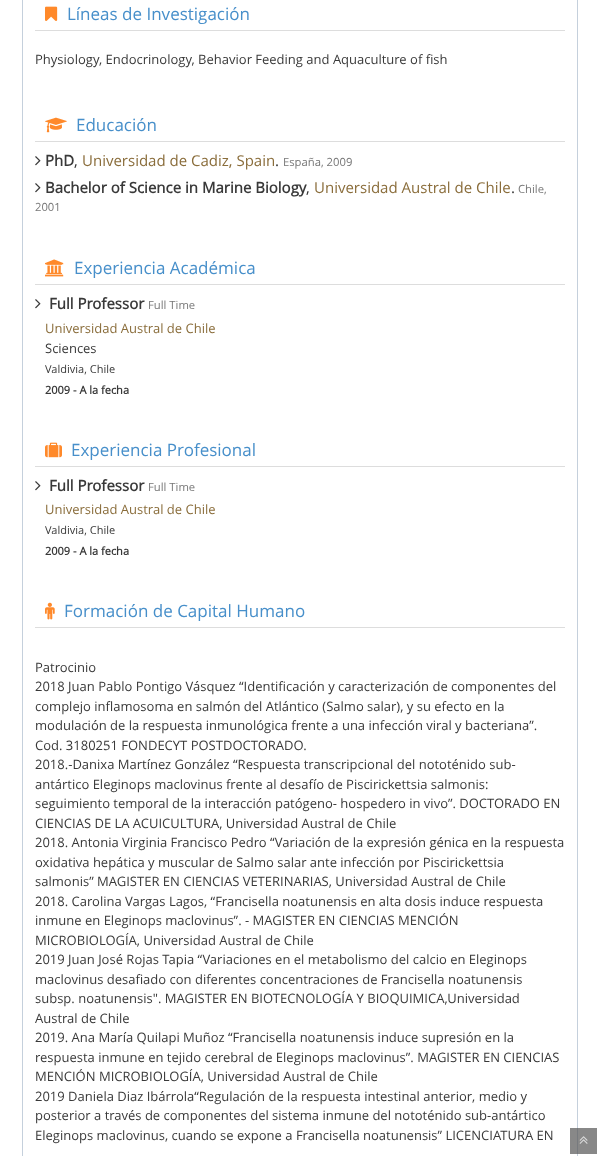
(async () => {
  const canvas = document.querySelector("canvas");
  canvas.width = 599;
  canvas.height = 1156;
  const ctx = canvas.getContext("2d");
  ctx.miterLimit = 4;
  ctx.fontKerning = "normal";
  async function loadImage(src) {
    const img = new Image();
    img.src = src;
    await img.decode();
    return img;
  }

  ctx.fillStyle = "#ffffff";
  ctx.fillRect(0, 0, 599, 1156);
  ctx.strokeStyle = "#c5d0dc";
  ctx.strokeRect(22.5, -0.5, 555, 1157);
  ctx.fillStyle = "#dddddd";
  ctx.fillRect(35, 30, 530, 1);
  ctx.drawImage(await loadImage("img/1.png"), 45, 6, 13, 15);
  ctx.fillRect(35, 141, 530, 1);
  ctx.drawImage(await loadImage("img/2.png"), 45, 117, 22, 16);
  ctx.drawImage(await loadImage("img/3.png"), 35, 156, 6, 10);
  ctx.drawImage(await loadImage("img/3.png"), 35, 183, 6, 10);
  ctx.fillRect(35, 284, 530, 1);
  ctx.drawImage(await loadImage("img/4.png"), 45, 259, 19, 18);
  ctx.drawImage(await loadImage("img/3.png"), 35, 299, 6, 10);
  ctx.fillRect(35, 466, 530, 1);
  ctx.drawImage(await loadImage("img/5.png"), 45, 442, 17, 16);
  ctx.drawImage(await loadImage("img/3.png"), 35, 481, 6, 10);
  ctx.fillRect(35, 627, 530, 1);
  ctx.drawImage(await loadImage("img/6.png"), 45, 602, 10, 18);
  ctx.fillStyle = "rgba(85, 85, 85, 0.7)";
  ctx.fillRect(570, 1128, 27, 26);
  ctx.drawImage(await loadImage("img/7.png"), 579, 1136, 9, 8);
  ctx.font = "17px Open Sans";
  ctx.fillStyle = "#478fca";
  ctx.fillText("Líneas de Investigación", 67, 20);
  ctx.font = "13px Open Sans";
  ctx.fillStyle = "#393939";
  ctx.fillText("Physiology, Endocrinology, Behavior Feeding and Aquaculture of fish", 35, 64);
  ctx.font = "17px Open Sans";
  ctx.fillStyle = "#478fca";
  ctx.fillText("Educación", 76, 131);
  ctx.font = "bold 15px Open Sans";
  ctx.fillStyle = "#393939";
  ctx.fillText("PhD", 45, 166);
  ctx.font = "15px Open Sans";
  ctx.fillText(",", 74, 166);
  ctx.fillStyle = "#8a6d3b";
  ctx.fillText("Universidad de Cadiz, Spain", 82, 166);
  ctx.fillStyle = "#393939";
  ctx.fillText(".", 275, 166);
  ctx.font = "11.25px Open Sans";
  ctx.fillStyle = "#777777";
  ctx.fillText("España, 2009", 283, 166);
  ctx.font = "bold 15px Open Sans";
  ctx.fillStyle = "#393939";
  ctx.fillText("Bachelor of Science in Marine Biology", 45, 193);
  ctx.font = "15px Open Sans";
  ctx.fillText(",", 306, 193);
  ctx.fillStyle = "#8a6d3b";
  ctx.fillText("Universidad Austral de Chile", 314, 193);
  ctx.fillStyle = "#393939";
  ctx.fillText(".", 511, 193);
  ctx.font = "11.25px Open Sans";
  ctx.fillStyle = "#777777";
  ctx.fillText("Chile,", 518, 193);
  ctx.fillText("2001", 35, 211);
  ctx.font = "17px Open Sans";
  ctx.fillStyle = "#478fca";
  ctx.fillText("Experiencia Académica", 74, 274);
  ctx.font = "bold 15px Open Sans";
  ctx.fillStyle = "#393939";
  ctx.fillText("Full Professor", 49, 309);
  ctx.font = "11.25px Open Sans";
  ctx.fillStyle = "#777777";
  ctx.fillText("Full Time", 148, 309);
  ctx.font = "13px Open Sans";
  ctx.fillStyle = "#8a6d3b";
  ctx.fillText("Universidad Austral de Chile", 45, 333);
  ctx.fillStyle = "#393939";
  ctx.fillText("Sciences", 45, 353);
  ctx.font = "11px Open Sans";
  ctx.fillText("Valdivia, Chile", 45, 373);
  ctx.font = "bold 11px Open Sans";
  ctx.fillText("2009 - A la fecha", 45, 394);
  ctx.font = "17px Open Sans";
  ctx.fillStyle = "#478fca";
  ctx.fillText("Experiencia Profesional", 71, 456);
  ctx.font = "bold 15px Open Sans";
  ctx.fillStyle = "#393939";
  ctx.fillText("Full Professor", 49, 491);
  ctx.font = "11.25px Open Sans";
  ctx.fillStyle = "#777777";
  ctx.fillText("Full Time", 148, 491);
  ctx.font = "13px Open Sans";
  ctx.fillStyle = "#8a6d3b";
  ctx.fillText("Universidad Austral de Chile", 45, 514);
  ctx.font = "11px Open Sans";
  ctx.fillStyle = "#393939";
  ctx.fillText("Valdivia, Chile", 45, 534);
  ctx.font = "bold 11px Open Sans";
  ctx.fillText("2009 - A la fecha", 45, 555);
  ctx.font = "17px Open Sans";
  ctx.fillStyle = "#478fca";
  ctx.fillText("Formación de Capital Humano", 64, 617);
  ctx.font = "13px Open Sans";
  ctx.fillStyle = "#393939";
  for (const [text, x, y] of [
    ["Patrocinio", 35, 672],
    ["2018 Juan Pablo Pontigo Vásquez “Identificación y caracterización de componentes del", 35, 691],
    ["complejo inflamosoma en salmón del Atlántico (Salmo salar), y su efecto en la", 35, 711],
    ["modulación de la respuesta inmunológica frente a una infección viral y bacteriana”.", 35, 730],
    ["Cod. 3180251 FONDECYT POSTDOCTORADO.", 35, 750],
    ["2018.-Danixa Martínez González “Respuesta transcripcional del nototénido sub-", 35, 769],
    ["antártico Eleginops maclovinus frente al desafío de Piscirickettsia salmonis:", 35, 789],
    ["seguimiento temporal de la interacción patógeno- hospedero in vivo”. DOCTORADO EN", 35, 808],
    ["CIENCIAS DE LA ACUICULTURA, Universidad Austral de Chile", 35, 828],
    ["2018. Antonia Virginia Francisco Pedro “Variación de la expresión génica en la respuesta", 35, 847],
    ["oxidativa hepática y muscular de Salmo salar ante infección por Piscirickettsia", 35, 867],
    ["salmonis” MAGISTER EN CIENCIAS VETERINARIAS, Universidad Austral de Chile", 35, 886],
    ["2018. Carolina Vargas Lagos, “Francisella noatunensis en alta dosis induce respuesta", 35, 906],
    ["inmune en Eleginops maclovinus”. - MAGISTER EN CIENCIAS MENCIÓN", 35, 925],
    ["MICROBIOLOGÍA, Universidad Austral de Chile", 35, 945],
    ["2019 Juan José Rojas Tapia “Variaciones en el metabolismo del calcio en Eleginops", 35, 964],
    ["maclovinus desafiado con diferentes concentraciones de Francisella noatunensis", 35, 984],
    ["subsp. noatunensis\". MAGISTER EN BIOTECNOLOGÍA Y BIOQUIMICA,Universidad", 35, 1003],
    ["Austral de Chile", 35, 1023],
    ["2019. Ana María Quilapi Muñoz “Francisella noatunensis induce supresión en la", 35, 1042],
    ["respuesta inmune en tejido cerebral de Eleginops maclovinus”. MAGISTER EN CIENCIAS", 35, 1062],
    ["MENCIÓN MICROBIOLOGÍA, Universidad Austral de Chile", 35, 1081],
    ["2019 Daniela Diaz Ibárrola“Regulación de la respuesta intestinal anterior, medio y", 35, 1101],
    ["posterior a través de componentes del sistema inmune del nototénido sub-antártico", 35, 1120],
    ["Eleginops maclovinus, cuando se expone a Francisella noatunensis” LICENCIATURA EN", 35, 1140],
  ]) {
    ctx.fillText(text, x, y);
  }
})();
